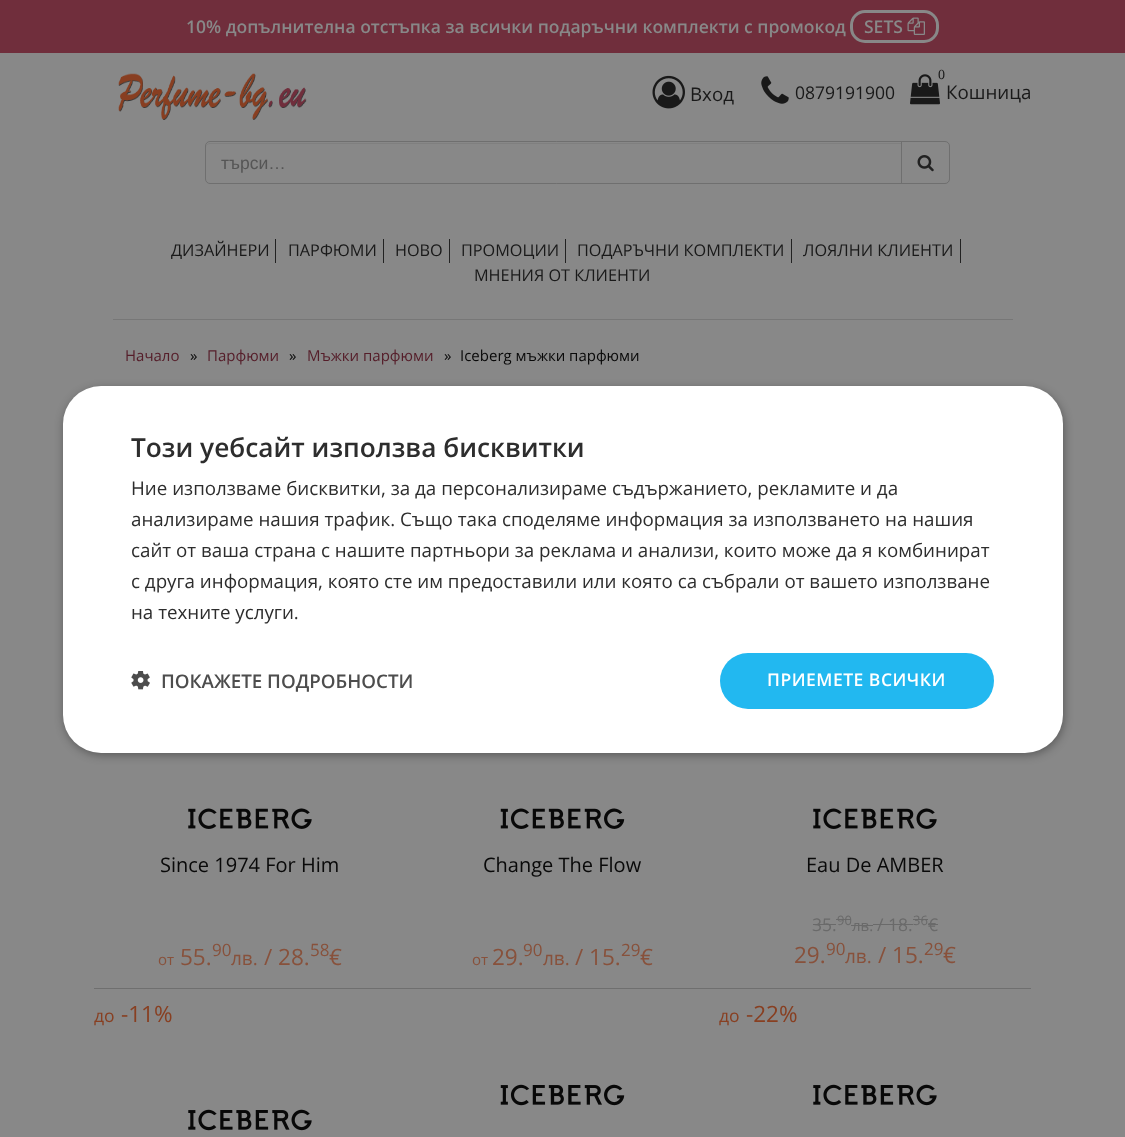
(async () => {
  const canvas = document.querySelector("canvas");
  canvas.width = 1125;
  canvas.height = 1137;
  const ctx = canvas.getContext("2d");
  ctx.miterLimit = 4;
  ctx.fontKerning = "normal";
  async function loadImage(src) {
    const img = new Image();
    img.src = src;
    await img.decode();
    return img;
  }
  let path;

  ctx.fillStyle = "#888888";
  ctx.fillRect(0, 0, 1125, 1137);
  ctx.fillStyle = "#702e3c";
  ctx.fillRect(0, 0, 1125, 53);
  ctx.beginPath();
  ctx.roundRect(851.5, 11.5, 86, 30, 13.5);
  ctx.strokeStyle = "#888888";
  ctx.lineWidth = 3;
  ctx.stroke();
  ctx.drawImage(await loadImage("img/1.png"), 907, 17, 18, 18);
  ctx.drawImage(await loadImage("img/2.png"), 118, 73, 189, 47);
  ctx.drawImage(await loadImage("img/3.png"), 652, 75, 33, 34);
  ctx.drawImage(await loadImage("img/4.png"), 761, 76, 28, 28);
  ctx.drawImage(await loadImage("img/5.png"), 910, 74, 30, 31);
  ctx.fillStyle = "#7f7f7f";
  path = new Path2D("M210 144H901V143H210C208 143 206 145 206 147V148C206 145 208 144 210 144Z");
  ctx.fill(path);
  ctx.beginPath();
  ctx.roundRect(205.5, 141.5, 697, 42, [4.5, 0, 0, 4.5]);
  ctx.strokeStyle = "#6f6f6f";
  ctx.lineWidth = 1;
  ctx.stroke();
  ctx.fillStyle = "#888888";
  ctx.beginPath();
  ctx.roundRect(901.5, 141.5, 48, 42, [0, 4.5, 4.5, 0]);
  ctx.fill();
  ctx.stroke();
  ctx.drawImage(await loadImage("img/6.png"), 917, 155, 17, 17);
  for (const [x, y, w, h, color] of [
    [113, 319, 900, 1, "#777777"],
    [275, 239, 1, 24, "#222222"],
    [383, 239, 1, 24, "#222222"],
    [449, 239, 1, 24, "#222222"],
    [565, 239, 1, 24, "#222222"],
    [791, 239, 1, 24, "#222222"],
    [960, 239, 1, 24, "#222222"],
  ]) {
    ctx.fillStyle = color;
    ctx.fillRect(x, y, w, h);
  }
  ctx.fillStyle = "rgba(0, 0, 0, 0.35)";
  ctx.filter = "blur(5px)";
  ctx.beginPath();
  ctx.roundRect(64, 389, 1000, 366, 38);
  ctx.fill();
  ctx.filter = "none";
  ctx.fillStyle = "#ffffff";
  ctx.beginPath();
  ctx.roundRect(63, 386, 1000, 367, 38);
  ctx.fill();
  ctx.drawImage(await loadImage("img/7.png"), 131, 671, 19, 19);
  ctx.fillStyle = "#22b8f0";
  ctx.beginPath();
  ctx.roundRect(720, 653, 274, 56, 28);
  ctx.fill();
  ctx.fillStyle = "#6f6f6f";
  ctx.fillRect(94, 988, 937, 1);
  ctx.drawImage(await loadImage("img/8.png"), 188, 808, 124, 21);
  ctx.drawImage(await loadImage("img/9.png"), 500, 808, 125, 21);
  ctx.drawImage(await loadImage("img/8.png"), 813, 808, 124, 21);
  for (const [x, y, w, h, color] of [
    [813, 924, 23, 1, "#6a6a6a"],
    [836, 919, 15, 1, "#6a6a6a"],
    [851, 925, 22, 1, "#6a6a6a"],
    [873, 924, 40, 1, "#6a6a6a"],
    [913, 919, 15, 1, "#6a6a6a"],
    [928, 924, 10, 1, "#6a6a6a"],
  ]) {
    ctx.fillStyle = color;
    ctx.fillRect(x, y, w, h);
  }
  ctx.drawImage(await loadImage("img/10.png"), 188, 1109, 124, 22);
  ctx.drawImage(await loadImage("img/10.png"), 813, 1084, 124, 22);
  ctx.drawImage(await loadImage("img/11.png"), 500, 1084, 125, 22);
  ctx.font = "600 17.5px Open Sans";
  ctx.fillStyle = "#888888";
  ctx.fillText("10% допълнителна отстъпка за всички подаръчни комплекти с промокод", 186, 33);
  ctx.fillText("SETS", 864, 33);
  ctx.font = "18.75px Open Sans";
  ctx.fillStyle = "#191919";
  ctx.fillText("Вход", 690, 101);
  ctx.font = "17.5px Open Sans";
  ctx.fillText("0879191900", 795, 99);
  ctx.font = "14px Liberation Serif";
  ctx.fillText("0", 938, 79);
  ctx.font = "18.75px Open Sans";
  ctx.fillText("Кошница", 946, 99);
  ctx.font = "17.5px Liberation Sans";
  ctx.fillStyle = "#555555";
  ctx.fillText("търси…", 221, 169);
  ctx.font = "16.25px Open Sans";
  ctx.fillStyle = "#191919";
  for (const [text, x, y] of [
    ["ДИЗАЙНЕРИ", 171, 256],
    ["ПАРФЮМИ", 288, 256],
    ["НОВО", 395, 256],
    ["ПРОМОЦИИ", 461, 256],
    ["ПОДАРЪЧНИ КОМПЛЕКТИ", 577, 256],
    ["ЛОЯЛНИ КЛИЕНТИ", 803, 256],
    ["МНЕНИЯ ОТ КЛИЕНТИ", 474, 281],
  ]) {
    ctx.fillText(text, x, y);
  }
  ctx.font = "15px Open Sans";
  ctx.fillStyle = "#551d29";
  ctx.fillText("Начало", 125, 361);
  ctx.fillStyle = "#090909";
  ctx.fillText("»", 190, 361);
  ctx.fillStyle = "#551d29";
  ctx.fillText("Парфюми", 207, 361);
  ctx.fillStyle = "#090909";
  ctx.fillText("»", 289, 361);
  ctx.fillStyle = "#551d29";
  ctx.fillText("Мъжки парфюми", 307, 361);
  ctx.fillStyle = "#090909";
  ctx.fillText("»", 444, 361);
  ctx.fillText("Iceberg мъжки парфюми", 460, 361);
  ctx.font = "600 26.25px Open Sans";
  ctx.fillStyle = "#2d2d2d";
  ctx.fillText("Този уебсайт използва бисквитки", 131, 457);
  ctx.font = "18.75px Open Sans";
  for (const [text, x, y] of [
    ["Ние използваме бисквитки, за да персонализираме съдържанието, рекламите и да", 131, 495],
    ["анализираме нашия трафик. Също така споделяме информация за използването на нашия", 131, 526],
    ["сайт от ваша страна с нашите партньори за реклама и анализи, които може да я комбинират", 131, 557],
    ["с друга информация, която сте им предоставили или която са събрали от вашето използване", 131, 588],
    ["на техните услуги.", 131, 619],
  ]) {
    ctx.fillText(text, x, y);
  }
  ctx.font = "600 18.75px Open Sans";
  ctx.fillStyle = "#4d4d4d";
  ctx.fillText("ПОКАЖЕТЕ ПОДРОБНОСТИ", 161, 688);
  ctx.letterSpacing = "0.5px";
  ctx.font = "600 17.5px Open Sans";
  ctx.fillStyle = "#ffffff";
  ctx.fillText("ПРИЕМЕТЕ ВСИЧКИ", 767, 686);
  ctx.letterSpacing = "0px";
  ctx.font = "20px Open Sans";
  ctx.fillStyle = "#090909";
  ctx.fillText("Since 1974 For Him", 160, 872);
  ctx.font = "15px Open Sans";
  ctx.fillStyle = "#88513b";
  ctx.fillText("от", 158, 965);
  ctx.font = "22.5px Open Sans";
  ctx.fillText("55.", 180, 965);
  ctx.font = "17px Open Sans";
  ctx.fillText("90", 212, 956);
  ctx.font = "19px Open Sans";
  ctx.fillText("лв.", 231, 965);
  ctx.font = "22.5px Open Sans";
  ctx.fillText("/ 28.", 264, 965);
  ctx.font = "17px Open Sans";
  ctx.fillText("58", 310, 956);
  ctx.font = "22.5px Open Sans";
  ctx.fillText("€", 329, 965);
  ctx.font = "20px Open Sans";
  ctx.fillStyle = "#090909";
  ctx.fillText("Change The Flow", 483, 872);
  ctx.font = "15px Open Sans";
  ctx.fillStyle = "#88513b";
  ctx.fillText("от", 472, 965);
  ctx.font = "22.5px Open Sans";
  ctx.fillText("29.", 492, 965);
  ctx.font = "17px Open Sans";
  ctx.fillText("90", 523, 956);
  ctx.font = "19px Open Sans";
  ctx.fillText("лв.", 543, 965);
  ctx.font = "22.5px Open Sans";
  ctx.fillText("/ 15.", 575, 965);
  ctx.font = "17px Open Sans";
  ctx.fillText("29", 621, 956);
  ctx.font = "22.5px Open Sans";
  ctx.fillText("€", 640, 965);
  ctx.font = "20px Open Sans";
  ctx.fillStyle = "#090909";
  ctx.fillText("Eau De AMBER", 806, 872);
  ctx.font = "17.5px Open Sans";
  ctx.fillStyle = "#6a6a6a";
  ctx.fillText("35.", 812, 931);
  ctx.font = "13px Open Sans";
  ctx.fillText("90", 837, 925);
  ctx.font = "15px Open Sans";
  ctx.fillText("лв.", 852, 931);
  ctx.font = "17.5px Open Sans";
  ctx.fillText("/ 18.", 877, 931);
  ctx.font = "13px Open Sans";
  ctx.fillText("36", 913, 925);
  ctx.font = "17.5px Open Sans";
  ctx.fillText("€", 928, 931);
  ctx.font = "22.5px Open Sans";
  ctx.fillStyle = "#88513b";
  ctx.fillText("29.", 794, 963);
  ctx.font = "17px Open Sans";
  ctx.fillText("90", 826, 955);
  ctx.font = "19px Open Sans";
  ctx.fillText("лв.", 845, 963);
  ctx.font = "22.5px Open Sans";
  ctx.fillText("/ 15.", 878, 963);
  ctx.font = "17px Open Sans";
  ctx.fillText("29", 924, 955);
  ctx.font = "22.5px Open Sans";
  ctx.fillText("€", 943, 963);
  ctx.font = "17.5px Open Sans";
  ctx.fillStyle = "#883f21";
  ctx.fillText("до", 94, 1022);
  ctx.font = "22.5px Open Sans";
  ctx.fillText("-11%", 121, 1022);
  ctx.font = "17.5px Open Sans";
  ctx.fillText("до", 719, 1022);
  ctx.font = "22.5px Open Sans";
  ctx.fillText("-22%", 746, 1022);
})();
